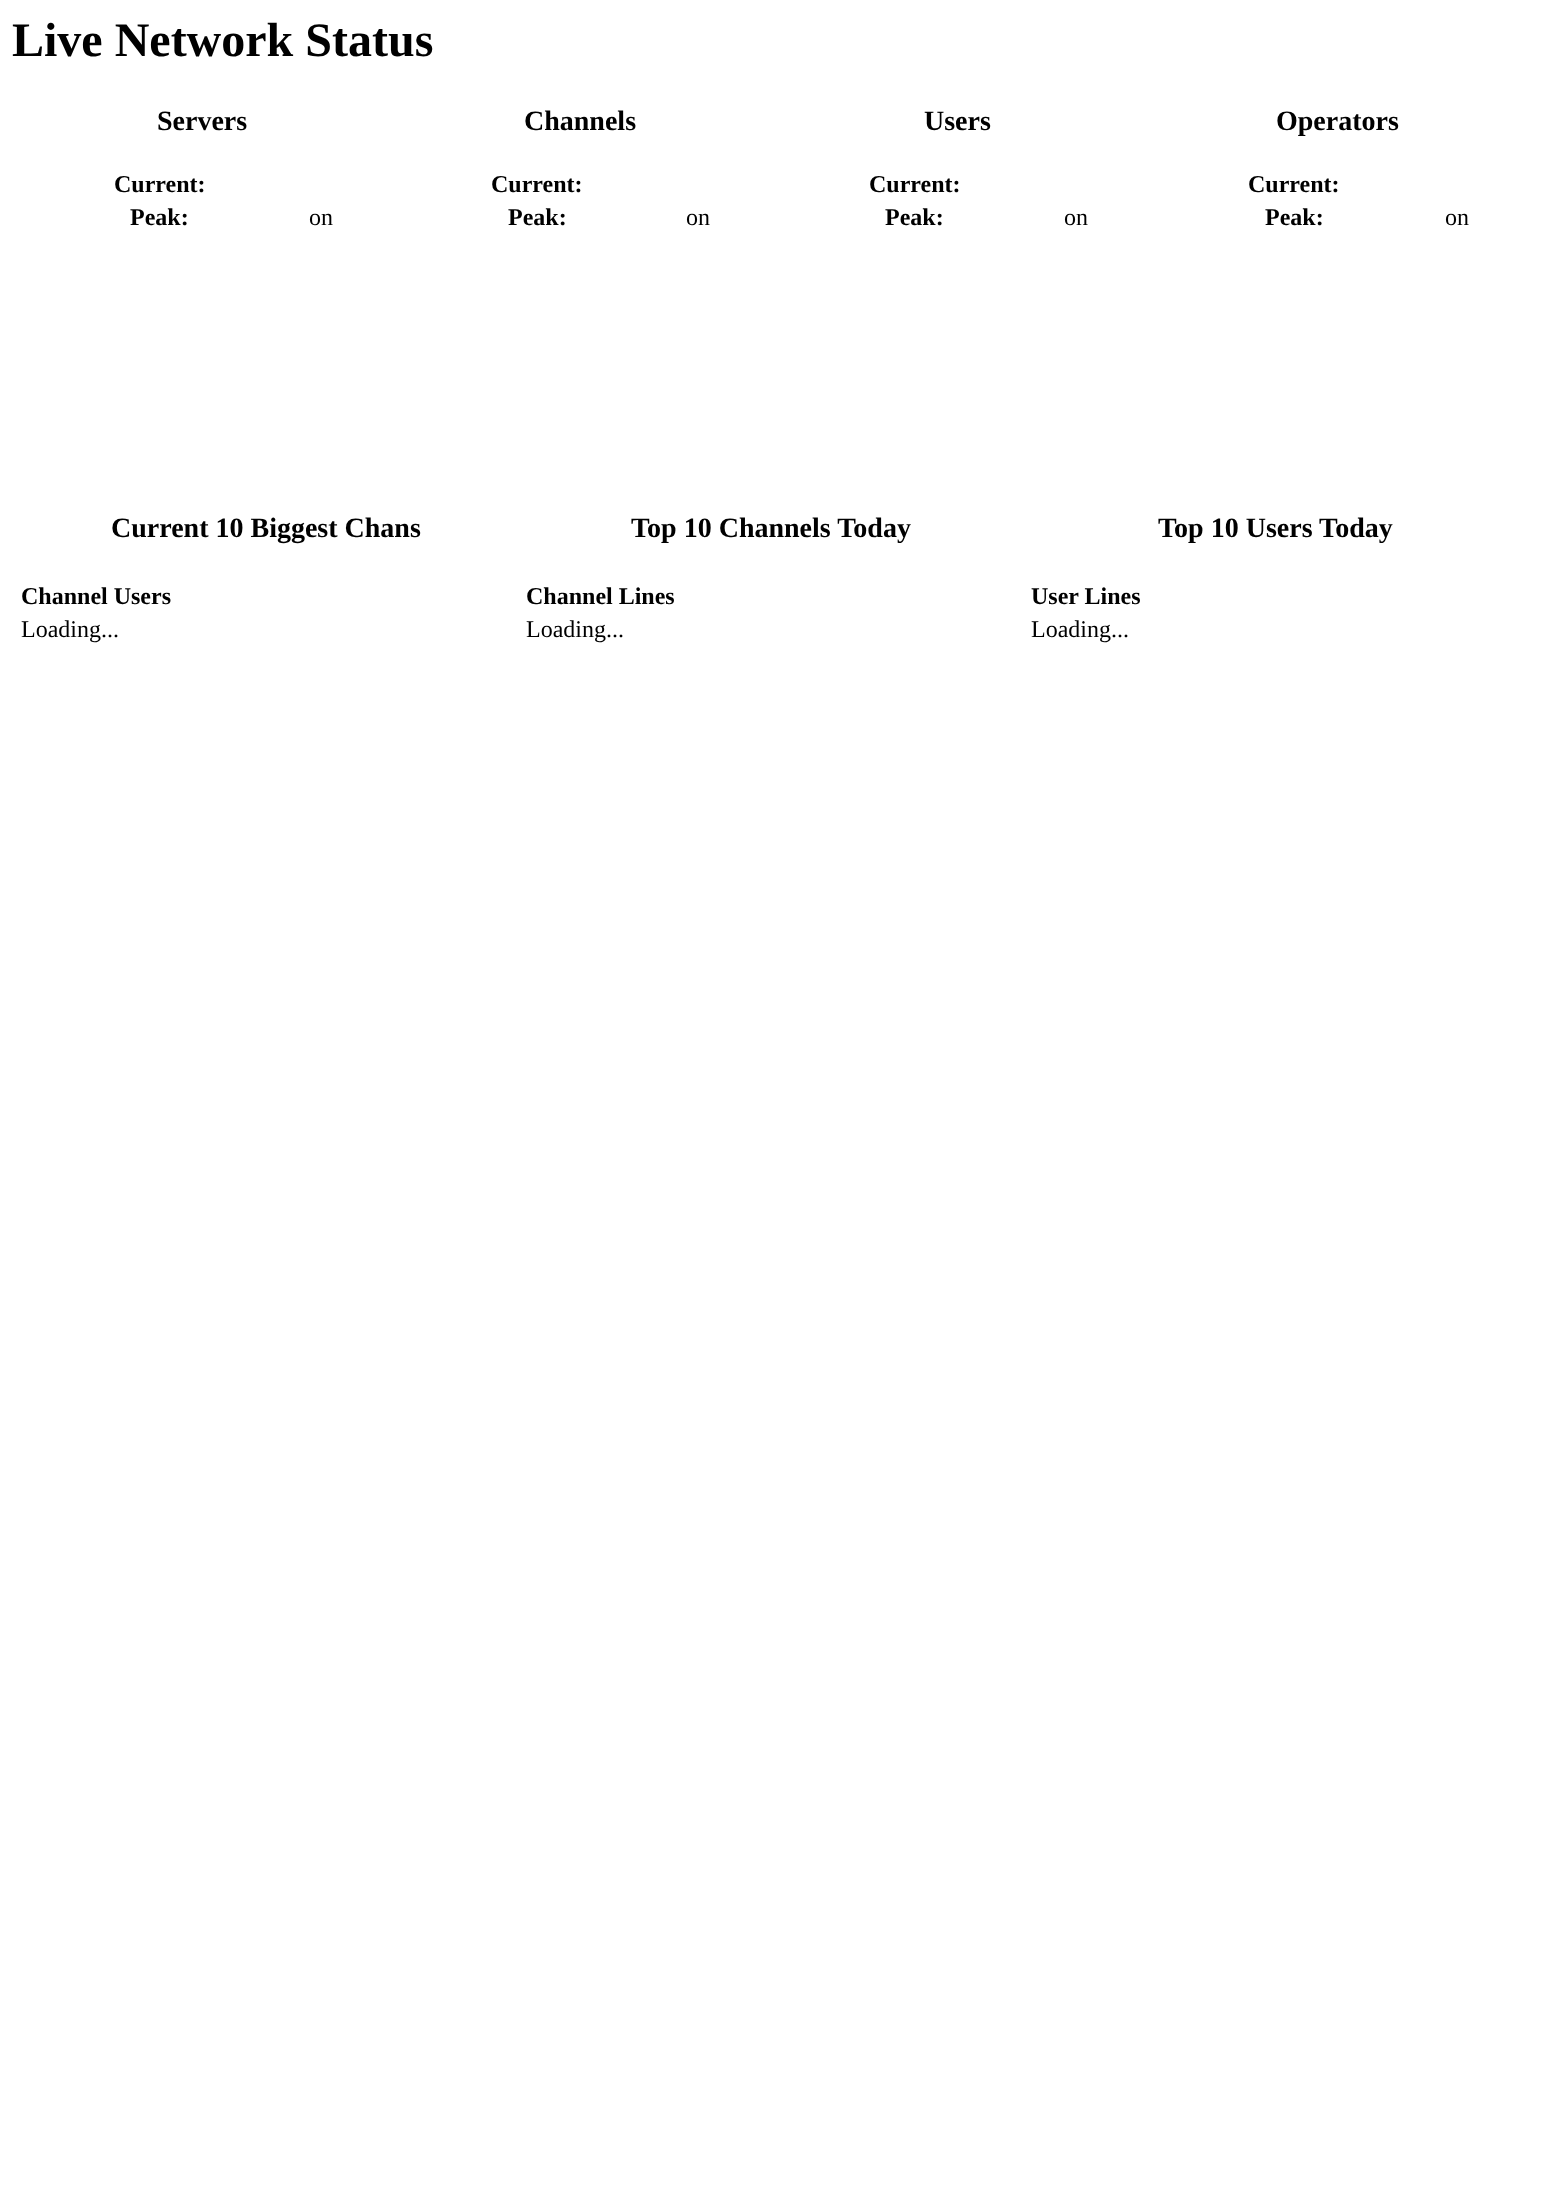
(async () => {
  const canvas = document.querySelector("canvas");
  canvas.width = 1542;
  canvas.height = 2185;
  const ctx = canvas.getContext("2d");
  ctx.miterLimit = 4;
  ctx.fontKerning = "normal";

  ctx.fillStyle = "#ffffff";
  ctx.fillRect(0, 0, 1542, 2185);
  ctx.font = "bold 48px Liberation Serif";
  ctx.fillStyle = "#000000";
  ctx.fillText("Live Network Status", 12, 56);
  ctx.font = "bold 28px Liberation Serif";
  for (const [text, x, y] of [
    ["Servers", 157, 130],
    ["Channels", 524, 130],
    ["Users", 924, 130],
    ["Operators", 1276, 130],
  ]) {
    ctx.fillText(text, x, y);
  }
  ctx.font = "bold 24px Liberation Serif";
  for (const [text, x, y] of [
    ["Current:", 114, 192],
    ["Current:", 491, 192],
    ["Current:", 869, 192],
    ["Current:", 1248, 192],
    ["Peak:", 130, 225],
  ]) {
    ctx.fillText(text, x, y);
  }
  ctx.font = "24px Liberation Serif";
  ctx.fillText("on", 309, 225);
  ctx.font = "bold 24px Liberation Serif";
  ctx.fillText("Peak:", 508, 225);
  ctx.font = "24px Liberation Serif";
  ctx.fillText("on", 686, 225);
  ctx.font = "bold 24px Liberation Serif";
  ctx.fillText("Peak:", 885, 225);
  ctx.font = "24px Liberation Serif";
  ctx.fillText("on", 1064, 225);
  ctx.font = "bold 24px Liberation Serif";
  ctx.fillText("Peak:", 1265, 225);
  ctx.font = "24px Liberation Serif";
  ctx.fillText("on", 1445, 225);
  ctx.font = "bold 28px Liberation Serif";
  for (const [text, x, y] of [
    ["Current 10 Biggest Chans", 111, 537],
    ["Top 10 Channels Today", 631, 537],
    ["Top 10 Users Today", 1158, 537],
  ]) {
    ctx.fillText(text, x, y);
  }
  ctx.font = "bold 24px Liberation Serif";
  ctx.fillText("Channel Users", 21, 604);
  ctx.font = "24px Liberation Serif";
  ctx.fillText("Loading...", 21, 637);
  ctx.font = "bold 24px Liberation Serif";
  ctx.fillText("Channel Lines", 526, 604);
  ctx.font = "24px Liberation Serif";
  ctx.fillText("Loading...", 526, 637);
  ctx.font = "bold 24px Liberation Serif";
  ctx.fillText("User Lines", 1031, 604);
  ctx.font = "24px Liberation Serif";
  ctx.fillText("Loading...", 1031, 637);
})();
